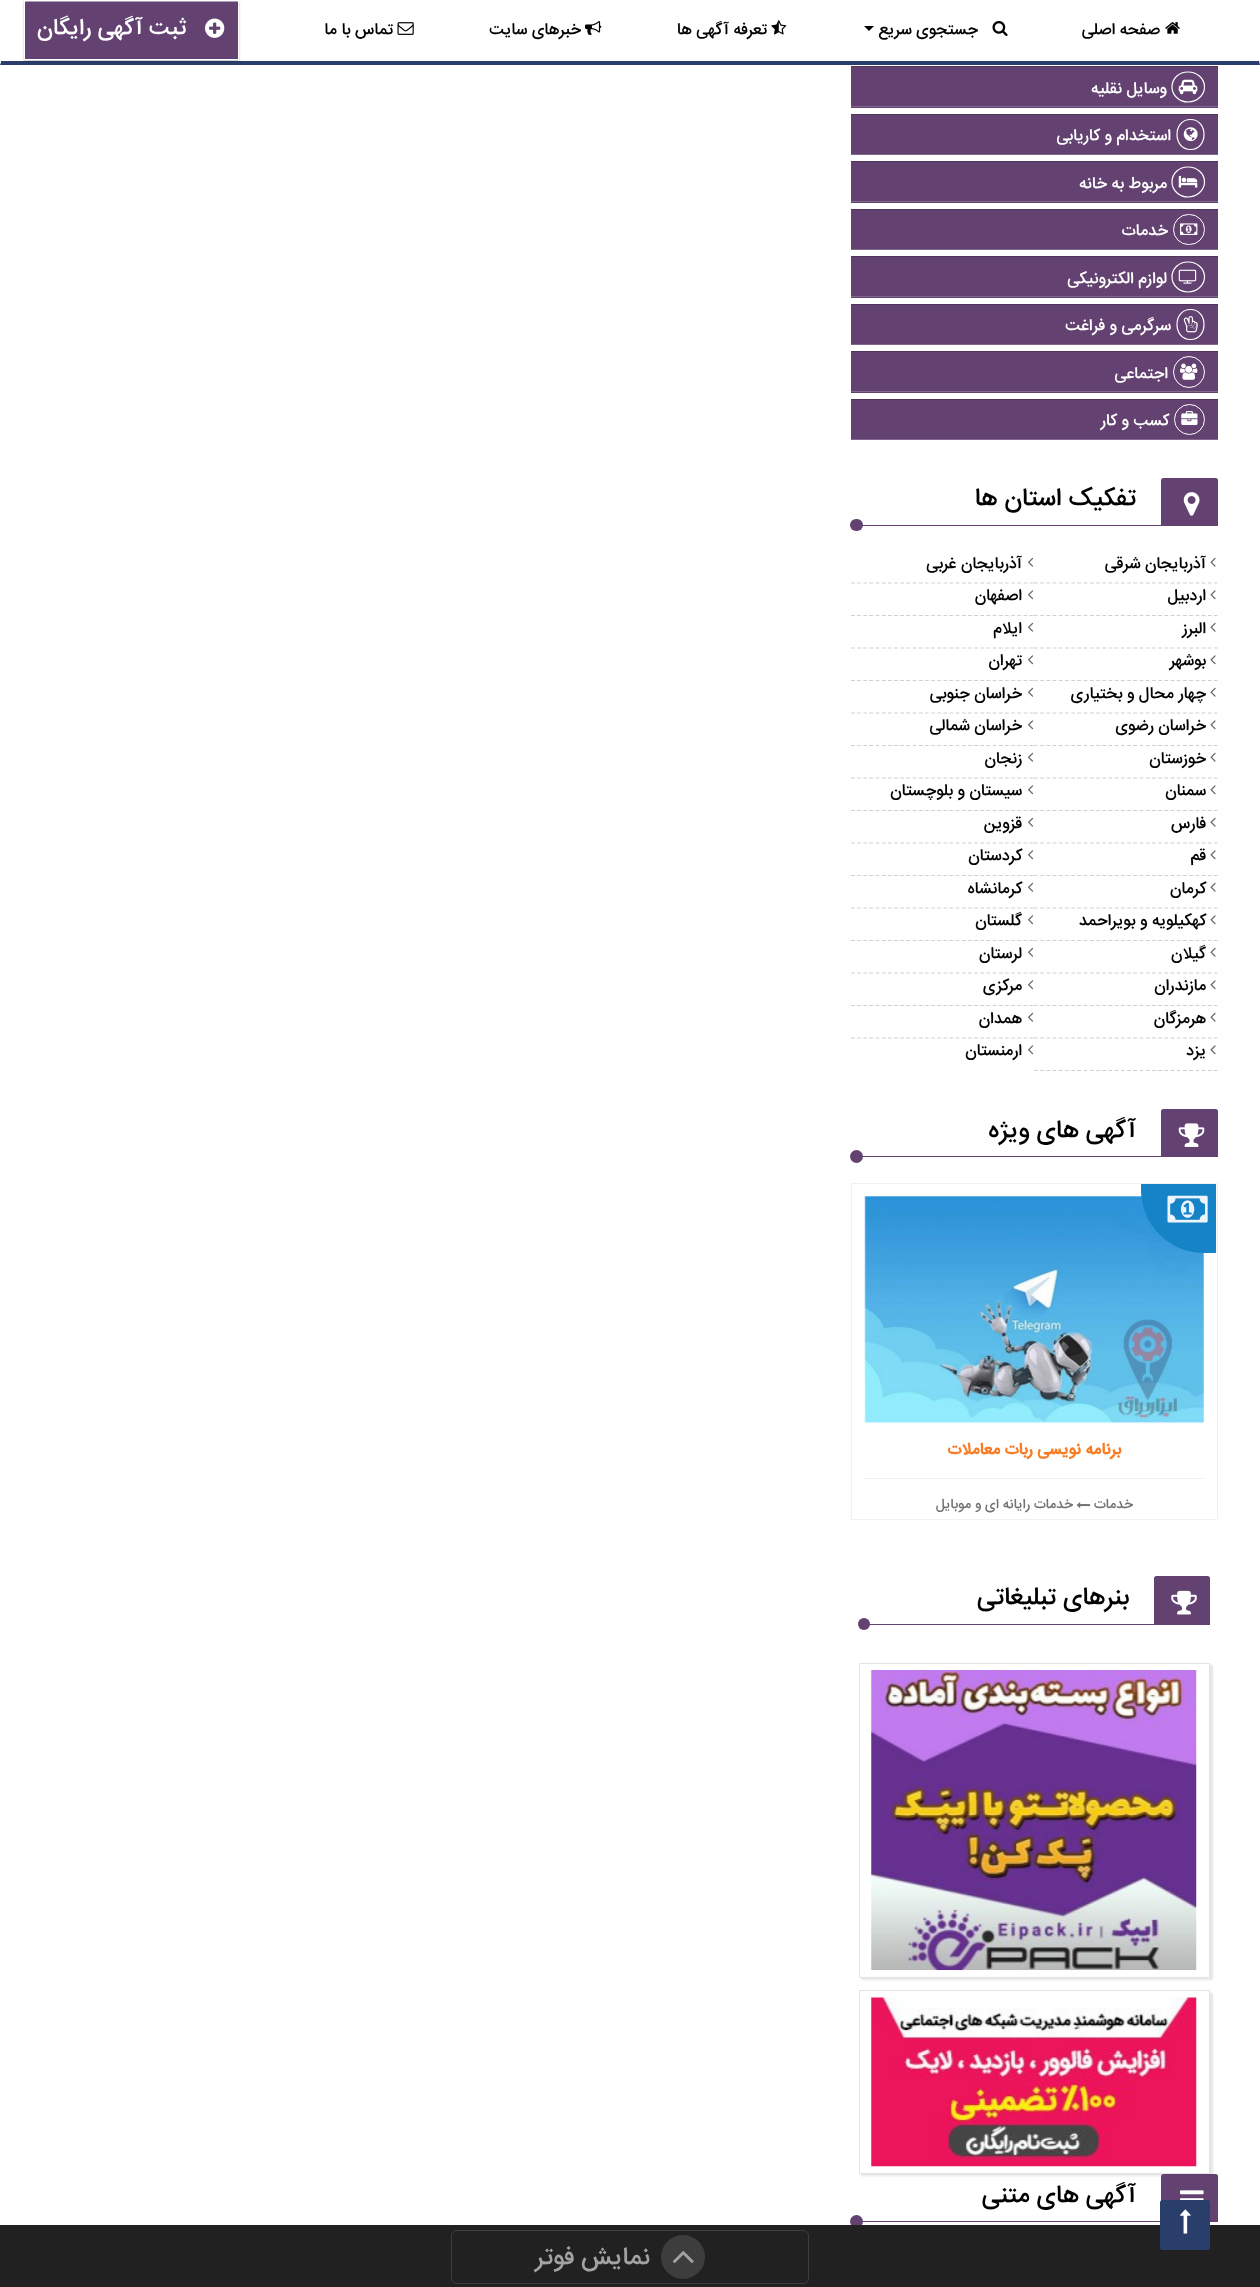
(async () => {
  const canvas = document.querySelector("canvas");
  canvas.width = 1260;
  canvas.height = 2287;
  const ctx = canvas.getContext("2d");
  ctx.miterLimit = 4;
  ctx.fontKerning = "normal";
  async function loadImage(src) {
    const img = new Image();
    img.src = src;
    await img.decode();
    return img;
  }
  let path;

  ctx.fillStyle = "#ffffff";
  ctx.fillRect(0, 0, 1260, 2287);
  ctx.fillStyle = "#293e6b";
  path = new Path2D("M1260 65H0L1 61H1259Z");
  ctx.fill(path);
  ctx.fillStyle = "#ffffff";
  path = new Path2D("M0 65V-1H1V61Z");
  ctx.fill(path);
  ctx.drawImage(await loadImage("img/1.png"), 1165, 22, 15, 12);
  ctx.drawImage(await loadImage("img/2.png"), 992, 21, 16, 16);
  ctx.fillStyle = "#010101";
  path = new Path2D("M864 26H874L869 31Z");
  ctx.fill(path);
  ctx.drawImage(await loadImage("img/3.png"), 771, 20, 16, 15);
  ctx.drawImage(await loadImage("img/4.png"), 585, 21, 17, 14);
  ctx.drawImage(await loadImage("img/5.png"), 397, 22, 17, 13);
  ctx.fillStyle = "rgba(0, 0, 0, 0.25)";
  ctx.filter = "blur(1px)";
  ctx.beginPath();
  ctx.rect(24, 1, 215, 60);
  ctx.fill();
  ctx.filter = "none";
  ctx.fillStyle = "#634271";
  ctx.fillRect(25, 2, 213, 57);
  ctx.fillStyle = "#b1a1b8";
  ctx.fillRect(25, 1, 213, 1);
  ctx.strokeStyle = "#ffffff";
  ctx.strokeRect(24.5, 0.5, 214, 59);
  ctx.drawImage(await loadImage("img/6.png"), 205, 18, 20, 20);
  for (const [x, y, w, h, color] of [
    [851, 67, 367, 41, "#634271"],
    [851, 66, 367, 1, "#4f355a"],
    [851, 106, 367, 1, "#82688d"],
  ]) {
    ctx.fillStyle = color;
    ctx.fillRect(x, y, w, h);
  }
  path = new Path2D("M1188 72C1197 72 1204.5 78.5 1204.5 87C1204.5 95 1197 102 1188 102C1179 102 1172 95 1172 87C1172 78.5 1179 72 1188 72Z");
  ctx.lineWidth = 1.2;
  ctx.stroke(path);
  ctx.drawImage(await loadImage("img/7.png"), 1178, 79, 20, 16);
  for (const [x, y, w, h, color] of [
    [851, 115, 367, 39, "#634271"],
    [851, 114, 367, 1, "#4f355a"],
    [851, 154, 367, 1, "#82688d"],
  ]) {
    ctx.fillStyle = color;
    ctx.fillRect(x, y, w, h);
  }
  path = new Path2D("M1190.5 119.5C1208.5 119.5 1208.5 149.5 1190.5 149.5C1172.5 149.5 1172.5 119.5 1190.5 119.5Z");
  ctx.stroke(path);
  ctx.drawImage(await loadImage("img/8.png"), 1183, 127, 15, 15);
  for (const [x, y, w, h, color] of [
    [851, 162, 367, 41, "#634271"],
    [851, 161, 367, 1, "#4f355a"],
    [851, 201, 367, 1, "#82688d"],
  ]) {
    ctx.fillStyle = color;
    ctx.fillRect(x, y, w, h);
  }
  path = new Path2D("M1188 167C1197 167 1204.5 173.5 1204.5 182C1204.5 190 1197 197 1188 197C1179 197 1172 190 1172 182C1172 173.5 1179 167 1188 167Z");
  ctx.stroke(path);
  ctx.drawImage(await loadImage("img/9.png"), 1178, 175, 20, 13);
  for (const [x, y, w, h, color] of [
    [851, 210, 367, 39, "#634271"],
    [851, 209, 367, 1, "#4f355a"],
    [851, 249, 367, 1, "#82688d"],
  ]) {
    ctx.fillStyle = color;
    ctx.fillRect(x, y, w, h);
  }
  ctx.beginPath();
  ctx.roundRect(1173.5, 214.5, 31, 30, 15);
  ctx.lineWidth = 1;
  ctx.stroke();
  ctx.drawImage(await loadImage("img/10.png"), 1180, 223, 18, 12);
  for (const [x, y, w, h, color] of [
    [851, 257, 367, 41, "#634271"],
    [851, 256, 367, 1, "#4f355a"],
    [851, 296, 367, 1, "#82688d"],
  ]) {
    ctx.fillStyle = color;
    ctx.fillRect(x, y, w, h);
  }
  path = new Path2D("M1188 262C1197 262 1204.5 268.5 1204.5 277C1204.5 285 1197 292 1188 292C1179 292 1172 285 1172 277C1172 268.5 1179 262 1188 262Z");
  ctx.lineWidth = 1.2;
  ctx.stroke(path);
  ctx.drawImage(await loadImage("img/11.png"), 1178, 269, 19, 15);
  for (const [x, y, w, h, color] of [
    [851, 305, 367, 39, "#634271"],
    [851, 304, 367, 1, "#4f355a"],
    [851, 344, 367, 1, "#82688d"],
  ]) {
    ctx.fillStyle = color;
    ctx.fillRect(x, y, w, h);
  }
  path = new Path2D("M1190.5 309.5C1208.5 309.5 1208.5 339.5 1190.5 339.5C1172.5 339.5 1172.5 309.5 1190.5 309.5Z");
  ctx.stroke(path);
  ctx.drawImage(await loadImage("img/12.png"), 1183, 316, 15, 17);
  for (const [x, y, w, h, color] of [
    [851, 352, 367, 41, "#634271"],
    [851, 351, 367, 1, "#4f355a"],
    [851, 391, 367, 1, "#82688d"],
  ]) {
    ctx.fillStyle = color;
    ctx.fillRect(x, y, w, h);
  }
  ctx.beginPath();
  ctx.arc(1189, 372, 15.5, 0, Math.PI * 2);
  ctx.lineWidth = 1;
  ctx.stroke();
  ctx.drawImage(await loadImage("img/13.png"), 1180, 363, 18, 17);
  for (const [x, y, w, h, color] of [
    [851, 400, 367, 39, "#634271"],
    [851, 399, 367, 1, "#4f355a"],
    [851, 439, 367, 1, "#82688d"],
  ]) {
    ctx.fillStyle = color;
    ctx.fillRect(x, y, w, h);
  }
  ctx.beginPath();
  ctx.arc(1189.5, 419.5, 15, 0, Math.PI * 2);
  ctx.stroke();
  ctx.drawImage(await loadImage("img/14.png"), 1181, 411, 17, 14);
  ctx.fillStyle = "#634271";
  ctx.fillRect(862, 525, 356, 1);
  ctx.beginPath();
  ctx.roundRect(1161, 478, 57, 47, [2.5, 2.5, 0, 0]);
  ctx.fill();
  ctx.drawImage(await loadImage("img/15.png"), 1183, 492, 17, 24);
  ctx.beginPath();
  ctx.roundRect(850, 519, 13, 12, 6);
  ctx.fill();
  path = new Path2D("M1034 583H1217.5");
  ctx.strokeStyle = "#d0d0d0";
  ctx.lineWidth = 1.2;
  ctx.setLineDash([3.75, 2.46]);
  ctx.stroke(path);
  ctx.drawImage(await loadImage("img/16.png"), 1210, 557, 6, 10);
  path = new Path2D("M851 583H1034");
  ctx.setLineDash([3.75, 2.41]);
  ctx.stroke(path);
  ctx.drawImage(await loadImage("img/17.png"), 1028, 557, 6, 10);
  path = new Path2D("M1034 615.5H1217.5");
  ctx.setLineDash([3.75, 2.46]);
  ctx.stroke(path);
  ctx.drawImage(await loadImage("img/18.png"), 1210, 590, 6, 10);
  path = new Path2D("M851 615.5H1034");
  ctx.setLineDash([3.75, 2.41]);
  ctx.stroke(path);
  ctx.drawImage(await loadImage("img/19.png"), 1028, 590, 6, 10);
  path = new Path2D("M1034 648H1217.5");
  ctx.setLineDash([3.75, 2.46]);
  ctx.stroke(path);
  ctx.drawImage(await loadImage("img/16.png"), 1210, 622, 6, 10);
  path = new Path2D("M851 648H1034");
  ctx.setLineDash([3.75, 2.41]);
  ctx.stroke(path);
  ctx.drawImage(await loadImage("img/17.png"), 1028, 622, 6, 10);
  path = new Path2D("M1034 680.5H1217.5");
  ctx.setLineDash([3.75, 2.46]);
  ctx.stroke(path);
  ctx.drawImage(await loadImage("img/18.png"), 1210, 655, 6, 10);
  path = new Path2D("M851 680.5H1034");
  ctx.setLineDash([3.75, 2.41]);
  ctx.stroke(path);
  ctx.drawImage(await loadImage("img/19.png"), 1028, 655, 6, 10);
  path = new Path2D("M1034 713H1217.5");
  ctx.setLineDash([3.75, 2.46]);
  ctx.stroke(path);
  ctx.drawImage(await loadImage("img/16.png"), 1210, 687, 6, 10);
  path = new Path2D("M851 713H1034");
  ctx.setLineDash([3.75, 2.41]);
  ctx.stroke(path);
  ctx.drawImage(await loadImage("img/17.png"), 1028, 687, 6, 10);
  path = new Path2D("M1034 745.5H1217.5");
  ctx.setLineDash([3.75, 2.46]);
  ctx.stroke(path);
  ctx.drawImage(await loadImage("img/18.png"), 1210, 720, 6, 10);
  path = new Path2D("M851 745.5H1034");
  ctx.setLineDash([3.75, 2.41]);
  ctx.stroke(path);
  ctx.drawImage(await loadImage("img/19.png"), 1028, 720, 6, 10);
  path = new Path2D("M1034 778H1217.5");
  ctx.setLineDash([3.75, 2.46]);
  ctx.stroke(path);
  ctx.drawImage(await loadImage("img/16.png"), 1210, 752, 6, 10);
  path = new Path2D("M851 778H1034");
  ctx.setLineDash([3.75, 2.41]);
  ctx.stroke(path);
  ctx.drawImage(await loadImage("img/17.png"), 1028, 752, 6, 10);
  path = new Path2D("M1034 810.5H1217.5");
  ctx.setLineDash([3.75, 2.46]);
  ctx.stroke(path);
  ctx.drawImage(await loadImage("img/18.png"), 1210, 785, 6, 10);
  path = new Path2D("M851 810.5H1034");
  ctx.setLineDash([3.75, 2.41]);
  ctx.stroke(path);
  ctx.drawImage(await loadImage("img/19.png"), 1028, 785, 6, 10);
  path = new Path2D("M1034 843H1217.5");
  ctx.setLineDash([3.75, 2.46]);
  ctx.stroke(path);
  ctx.drawImage(await loadImage("img/16.png"), 1210, 817, 6, 10);
  path = new Path2D("M851 843H1034");
  ctx.setLineDash([3.75, 2.41]);
  ctx.stroke(path);
  ctx.drawImage(await loadImage("img/17.png"), 1028, 817, 6, 10);
  path = new Path2D("M1034 875.5H1217.5");
  ctx.setLineDash([3.75, 2.46]);
  ctx.stroke(path);
  ctx.drawImage(await loadImage("img/18.png"), 1210, 850, 6, 10);
  path = new Path2D("M851 875.5H1034");
  ctx.setLineDash([3.75, 2.41]);
  ctx.stroke(path);
  ctx.drawImage(await loadImage("img/19.png"), 1028, 850, 6, 10);
  path = new Path2D("M1034 908H1217.5");
  ctx.setLineDash([3.75, 2.46]);
  ctx.stroke(path);
  ctx.drawImage(await loadImage("img/16.png"), 1210, 882, 6, 10);
  path = new Path2D("M851 908H1034");
  ctx.setLineDash([3.75, 2.41]);
  ctx.stroke(path);
  ctx.drawImage(await loadImage("img/17.png"), 1028, 882, 6, 10);
  path = new Path2D("M1034 940.5H1217.5");
  ctx.setLineDash([3.75, 2.46]);
  ctx.stroke(path);
  ctx.drawImage(await loadImage("img/18.png"), 1210, 915, 6, 10);
  path = new Path2D("M851 940.5H1034");
  ctx.setLineDash([3.75, 2.41]);
  ctx.stroke(path);
  ctx.drawImage(await loadImage("img/19.png"), 1028, 915, 6, 10);
  path = new Path2D("M1034 973H1217.5");
  ctx.setLineDash([3.75, 2.46]);
  ctx.stroke(path);
  ctx.drawImage(await loadImage("img/16.png"), 1210, 947, 6, 10);
  path = new Path2D("M851 973H1034");
  ctx.setLineDash([3.75, 2.41]);
  ctx.stroke(path);
  ctx.drawImage(await loadImage("img/17.png"), 1028, 947, 6, 10);
  path = new Path2D("M1034 1005.5H1217.5");
  ctx.setLineDash([3.75, 2.46]);
  ctx.stroke(path);
  ctx.drawImage(await loadImage("img/18.png"), 1210, 980, 6, 10);
  path = new Path2D("M851 1005.5H1034");
  ctx.setLineDash([3.75, 2.41]);
  ctx.stroke(path);
  ctx.drawImage(await loadImage("img/19.png"), 1028, 980, 6, 10);
  path = new Path2D("M1034 1038H1217.5");
  ctx.setLineDash([3.75, 2.46]);
  ctx.stroke(path);
  ctx.drawImage(await loadImage("img/16.png"), 1210, 1012, 6, 10);
  path = new Path2D("M851 1038H1034");
  ctx.setLineDash([3.75, 2.41]);
  ctx.stroke(path);
  ctx.drawImage(await loadImage("img/17.png"), 1028, 1012, 6, 10);
  path = new Path2D("M1034 1070.5H1217.5");
  ctx.setLineDash([3.75, 2.46]);
  ctx.stroke(path);
  ctx.drawImage(await loadImage("img/18.png"), 1210, 1045, 6, 10);
  ctx.drawImage(await loadImage("img/19.png"), 1028, 1045, 6, 10);
  ctx.fillRect(862, 1156, 356, 1);
  ctx.beginPath();
  ctx.roundRect(1161, 1109, 57, 47, [2.5, 2.5, 0, 0]);
  ctx.fill();
  ctx.drawImage(await loadImage("img/20.png"), 1178, 1123, 27, 24);
  ctx.beginPath();
  ctx.arc(856.5, 1156.5, 6.5, 0, Math.PI * 2);
  ctx.fill();
  ctx.strokeStyle = "#f1f1f1";
  ctx.lineWidth = 1;
  ctx.setLineDash([]);
  ctx.strokeRect(851.5, 1183.5, 366, 336);
  ctx.drawImage(await loadImage("img/22.png"), 864, 1196, 340, 228);
  ctx.fillStyle = "#1683c6";
  ctx.beginPath();
  ctx.roundRect(1141, 1184, 75, 69, [0, 0, 0, 63]);
  ctx.fill();
  ctx.drawImage(await loadImage("img/21.png"), 1167, 1195, 41, 28);
  ctx.fillStyle = "#f0f0f0";
  ctx.fillRect(865, 1478, 339, 1);
  ctx.drawImage(await loadImage("img/23.png"), 1076, 1502, 15, 6);
  ctx.fillStyle = "#634271";
  ctx.fillRect(869, 1624, 341, 1);
  ctx.beginPath();
  ctx.roundRect(1154, 1576, 56, 48, [2.5, 2.5, 0, 0]);
  ctx.fill();
  ctx.drawImage(await loadImage("img/24.png"), 1171, 1590, 26, 25);
  ctx.beginPath();
  ctx.arc(864, 1624, 6, 0, Math.PI * 2);
  ctx.fill();
  ctx.fillStyle = "rgba(0, 0, 0, 0.1)";
  ctx.filter = "blur(1px)";
  ctx.beginPath();
  ctx.rect(861, 1665, 352, 315);
  ctx.fill();
  ctx.filter = "none";
  ctx.fillStyle = "#ffffff";
  ctx.beginPath();
  ctx.rect(859.5, 1663.5, 350, 314);
  ctx.fill();
  ctx.strokeStyle = "#e3e3e3";
  ctx.stroke();
  ctx.drawImage(await loadImage("img/25.png"), 871, 1670, 326, 300);
  ctx.fillStyle = "rgba(0, 0, 0, 0.1)";
  ctx.filter = "blur(1px)";
  ctx.beginPath();
  ctx.rect(861, 1993, 352, 183);
  ctx.fill();
  ctx.filter = "none";
  ctx.fillStyle = "#ffffff";
  ctx.fillRect(860, 1992, 349, 181);
  ctx.strokeRect(859.5, 1990.5, 350, 183);
  ctx.drawImage(await loadImage("img/26.png"), 871, 1997, 326, 170);
  ctx.fillStyle = "#634271";
  ctx.fillRect(862, 2221, 356, 1);
  ctx.beginPath();
  ctx.roundRect(1161, 2174, 57, 47, [2.5, 2.5, 0, 0]);
  ctx.fill();
  ctx.drawImage(await loadImage("img/27.png"), 1180, 2190, 24, 10);
  ctx.beginPath();
  ctx.arc(856.5, 2221.5, 6.5, 0, Math.PI * 2);
  ctx.fill();
  ctx.fillStyle = "#212121";
  ctx.fillRect(0, 2225, 1260, 62);
  ctx.fillStyle = "#293e6b";
  ctx.beginPath();
  ctx.roundRect(1160, 2200, 50, 50, 2.5);
  ctx.fill();
  ctx.drawImage(await loadImage("img/28.png"), 1180, 2209, 11, 25);
  ctx.beginPath();
  ctx.roundRect(451.5, 2230.5, 357, 53, 5.5);
  ctx.strokeStyle = "#3d3d3d";
  ctx.stroke();
  ctx.fillStyle = "#3d3d3d";
  ctx.beginPath();
  ctx.arc(683, 2257, 22, 0, Math.PI * 2);
  ctx.fill();
  ctx.drawImage(await loadImage("img/29.png"), 672, 2251, 22, 12);
  ctx.direction = "rtl";
  ctx.font = "500 16.25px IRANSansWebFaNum";
  ctx.fillStyle = "#010101";
  for (const [text, x, y] of [
    ["صفحه اصلی", 1160, 34],
    ["جستجوی سریع", 978, 34],
    ["تعرفه آگهی ها", 767, 34],
    ["خبرهای سایت", 581, 34],
    ["تماس با ما", 393, 34],
  ]) {
    ctx.fillText(text, x, y);
  }
  ctx.font = "500 22.5px IRANSansWebFaNum";
  ctx.fillStyle = "#ffffff";
  ctx.fillText("ثبت آگهی رایگان", 186, 34);
  ctx.font = "500 16.25px IRANSansWebFaNum";
  for (const [text, x, y] of [
    ["وسایل نقلیه", 1167, 93],
    ["استخدام و کاریابی", 1171, 140],
    ["مربوط به خانه", 1167, 188],
    ["خدمات", 1168, 235],
    ["لوازم الکترونیکی", 1167, 283],
    ["سرگرمی و فراغت", 1171, 330],
    ["اجتماعی", 1168, 378],
    ["کسب و کار", 1169, 425],
  ]) {
    ctx.fillText(text, x, y);
  }
  ctx.font = "500 25px IRANSansWebFaNum";
  ctx.fillStyle = "#010101";
  ctx.fillText("تفکیک استان ها", 1136, 505);
  ctx.font = "500 16.25px IRANSansWebFaNum";
  for (const [text, x, y] of [
    ["آذربایجان شرقی", 1206, 568],
    ["آذربایجان غربی", 1022, 568],
    ["اردبیل", 1206, 600],
    ["اصفهان", 1022, 600],
    ["البرز", 1206, 633],
    ["ایلام", 1022, 633],
    ["بوشهر", 1206, 665],
    ["تهران", 1022, 665],
    ["چهار محال و بختیاری", 1206, 698],
    ["خراسان جنوبی", 1022, 698],
    ["خراسان رضوی", 1206, 730],
    ["خراسان شمالی", 1022, 730],
    ["خوزستان", 1206, 763],
    ["زنجان", 1022, 763],
    ["سمنان", 1206, 795],
    ["سیستان و بلوچستان", 1022, 795],
    ["فارس", 1206, 828],
    ["قزوین", 1022, 828],
    ["قم", 1206, 860],
    ["کردستان", 1022, 860],
    ["کرمان", 1206, 893],
    ["کرمانشاه", 1022, 893],
    ["کهکیلویه و بویراحمد", 1206, 925],
    ["گلستان", 1022, 925],
    ["گیلان", 1206, 958],
    ["لرستان", 1022, 958],
    ["مازندران", 1206, 990],
    ["مرکزی", 1022, 990],
    ["هرمزگان", 1206, 1023],
    ["همدان", 1022, 1023],
    ["یزد", 1206, 1055],
    ["ارمنستان", 1022, 1055],
  ]) {
    ctx.fillText(text, x, y);
  }
  ctx.font = "500 25px IRANSansWebFaNum";
  ctx.fillText("آگهی های ویژه", 1136, 1137);
  ctx.font = "bold 16.25px IRANSansWebFaNum";
  ctx.fillStyle = "#f77c23";
  ctx.fillText("برنامه نویسی ربات معاملات", 1121, 1454);
  ctx.font = "500 13.75px IRANSansWebFaNum";
  ctx.fillStyle = "#727272";
  ctx.fillText("خدمات", 1133, 1508);
  ctx.fillText("خدمات رایانه ای و موبایل", 1073, 1508);
  ctx.font = "500 25px IRANSansWebFaNum";
  ctx.fillStyle = "#010101";
  ctx.fillText("بنرهای تبلیغاتی", 1129, 1604);
  ctx.fillText("آگهی های متنی", 1136, 2202);
  ctx.fillStyle = "#a2a2a2";
  ctx.fillText("نمایش فوتر", 650, 2264);
})();
